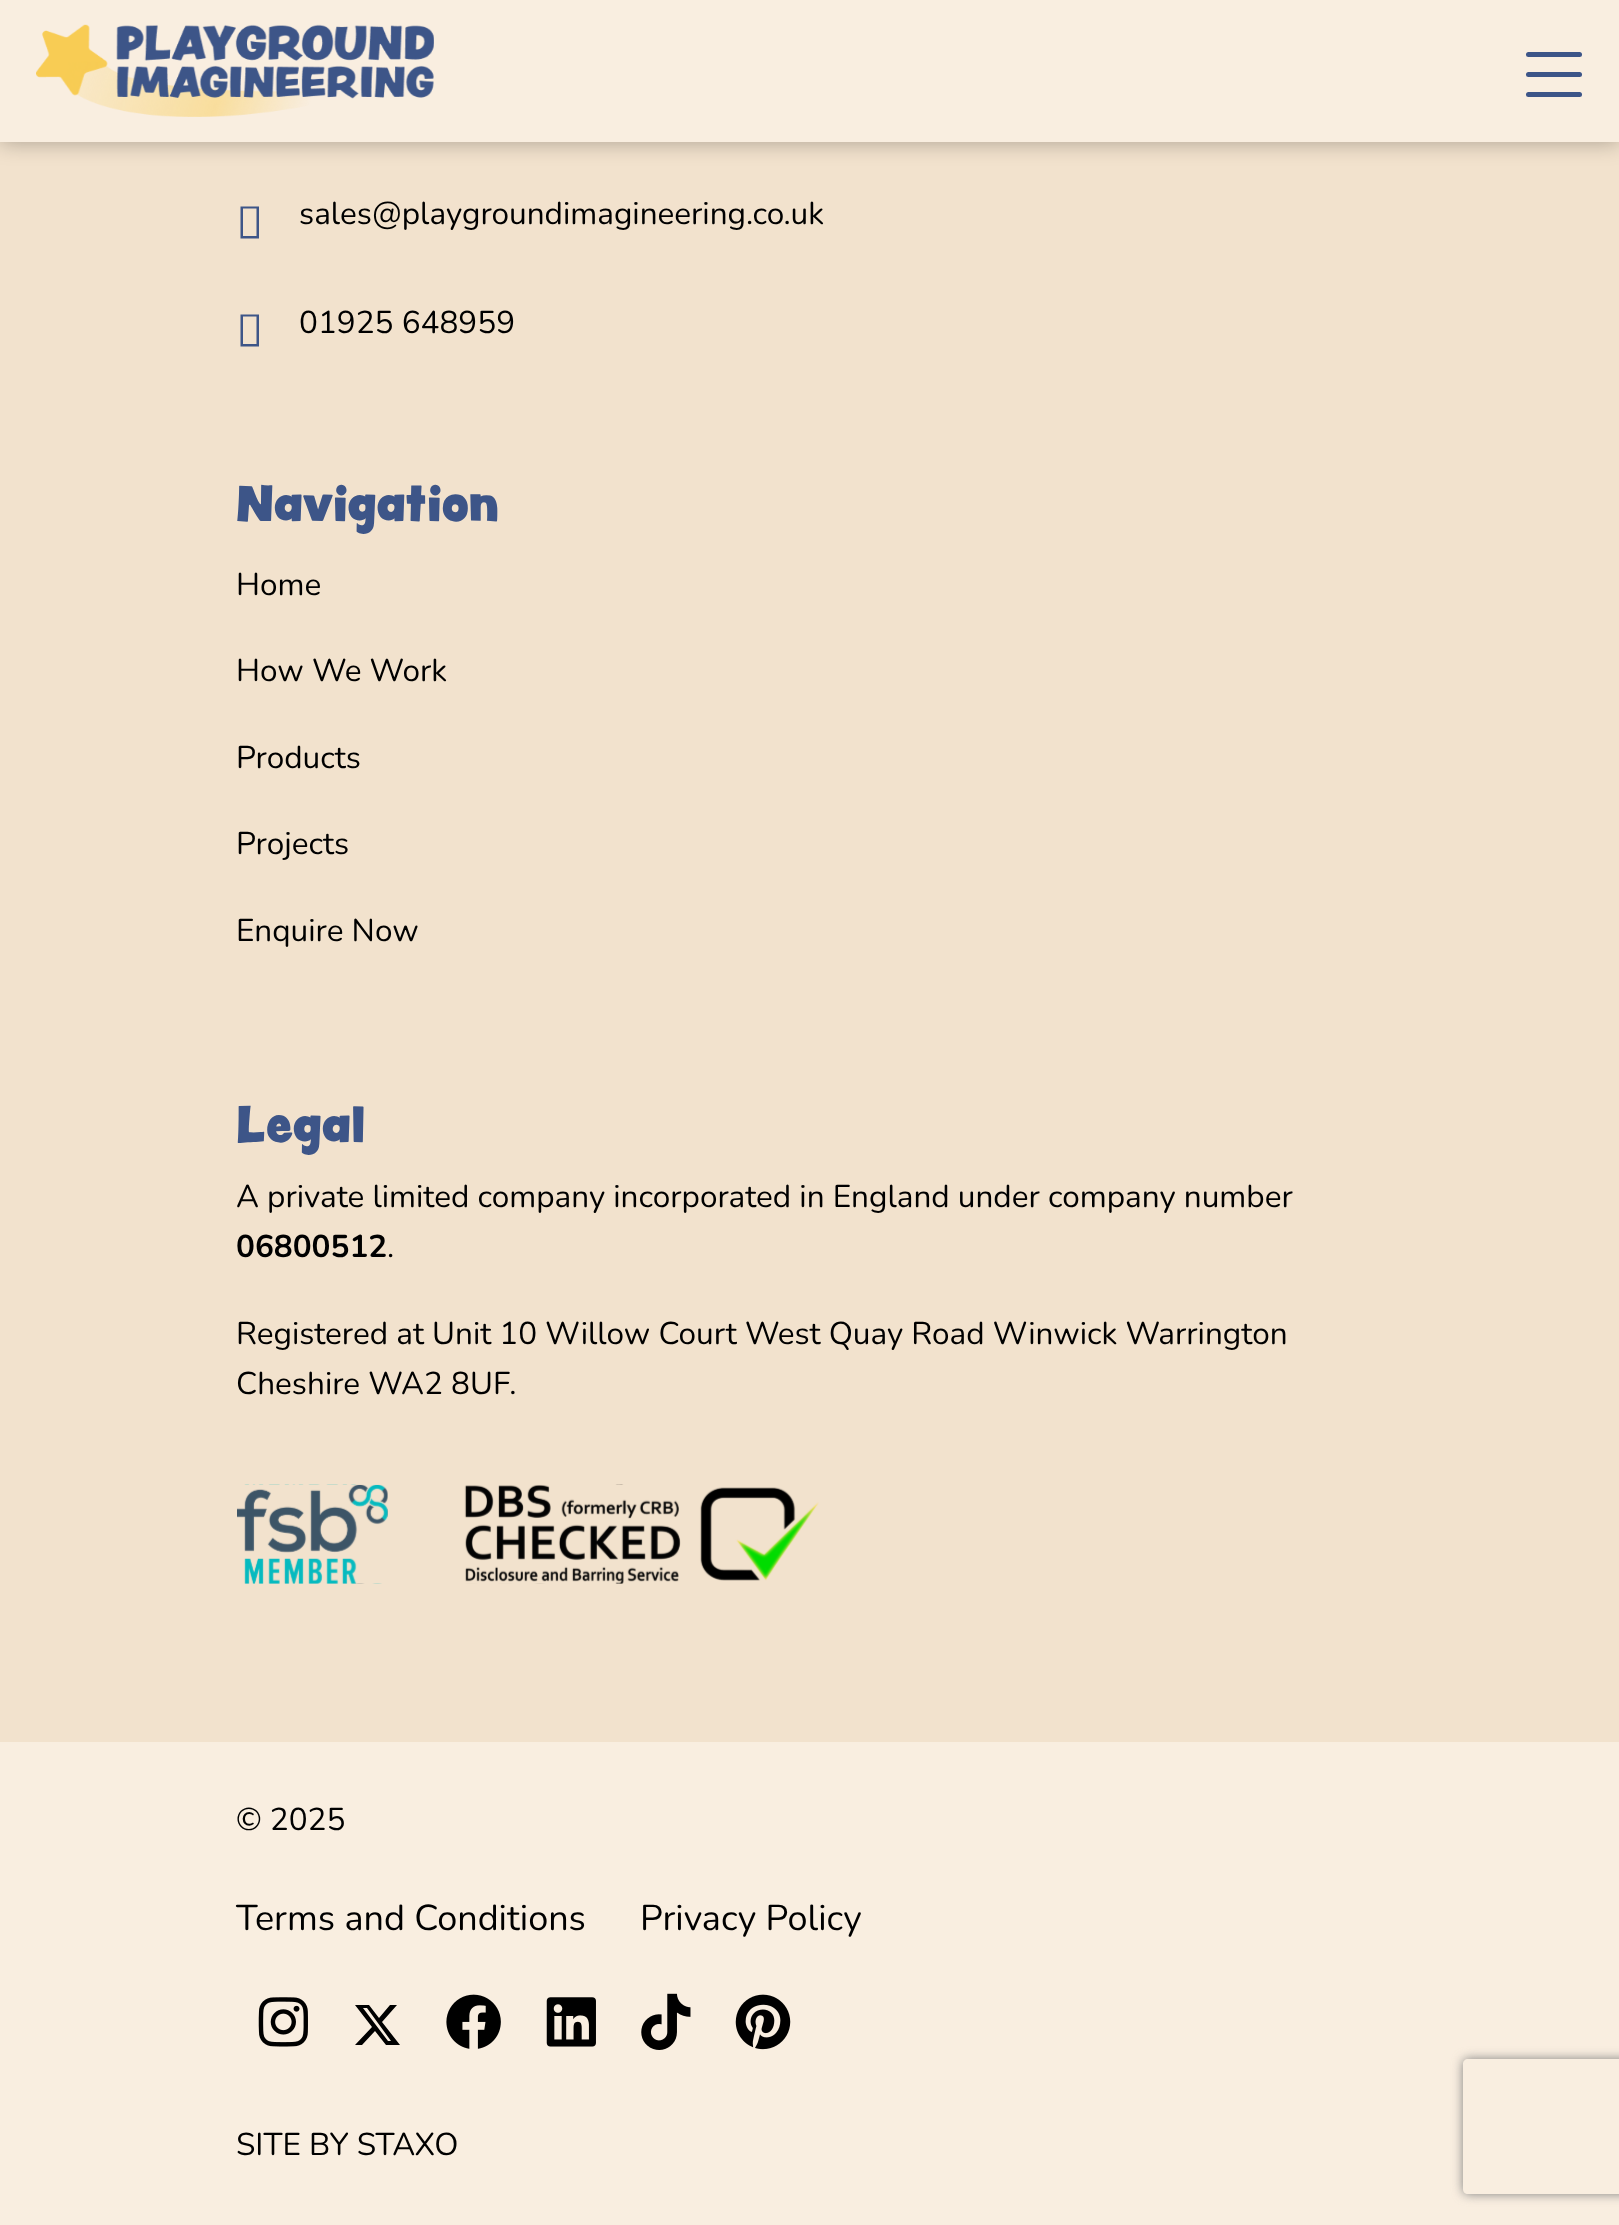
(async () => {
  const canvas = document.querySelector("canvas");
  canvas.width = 1619;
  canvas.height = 2225;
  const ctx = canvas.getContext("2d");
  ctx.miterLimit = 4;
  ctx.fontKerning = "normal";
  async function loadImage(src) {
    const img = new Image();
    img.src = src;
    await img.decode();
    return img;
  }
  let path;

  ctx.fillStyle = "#f9eee0";
  ctx.fillRect(0, 0, 1619, 2225);
  ctx.fillStyle = "#f2e2cd";
  ctx.fillRect(0, 142, 1619, 1600);
  ctx.fillStyle = "rgba(0, 0, 0, 0.3)";
  ctx.filter = "blur(11px)";
  ctx.beginPath();
  ctx.rect(0, 0, 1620, 142);
  ctx.fill();
  ctx.filter = "none";
  ctx.fillStyle = "#f9eee0";
  ctx.fillRect(0, 0, 1619, 142);
  ctx.drawImage(await loadImage("img/1.png"), 36, 24, 398, 93);
  ctx.fillStyle = "#3d5588";
  ctx.beginPath();
  ctx.roundRect(1526, 52, 56, 5, 2.5);
  ctx.fill();
  ctx.beginPath();
  ctx.roundRect(1526, 72, 56, 5, 2.5);
  ctx.fill();
  ctx.beginPath();
  ctx.roundRect(1526, 92, 56, 5, 2.5);
  ctx.fill();
  path = new Path2D("M240.5 238.5V206.5H259V238.5ZM243 236H256.5V208.5H243Z");
  ctx.fill(path);
  path = new Path2D("M240.5 346.5V314.5H259V346.5ZM243 344H256.5V316.5H243Z");
  ctx.fill(path);
  ctx.drawImage(await loadImage("img/2.png"), 237, 1484, 151, 100);
  ctx.drawImage(await loadImage("img/3.png"), 464, 1484, 355, 100);
  ctx.drawImage(await loadImage("img/4.png"), 258, 1997, 50, 50);
  ctx.fillStyle = "#000000";
  path = new Path2D("M390 2005H397L382 2022L400 2045H386L375 2031L362 2045H355L372 2027L355 2005H369L379 2018ZM388 2041H391L367 2008H363Z");
  ctx.fill(path);
  ctx.drawImage(await loadImage("img/5.png"), 446, 1994, 55, 55);
  ctx.drawImage(await loadImage("img/6.png"), 546, 1997, 50, 50);
  ctx.drawImage(await loadImage("img/7.png"), 641, 1993, 50, 57);
  ctx.drawImage(await loadImage("img/8.png"), 735, 1994, 56, 56);
  ctx.save();
  path = new Path2D("M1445 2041H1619V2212H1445ZM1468 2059H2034C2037 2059 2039 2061 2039 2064V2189C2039 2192 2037 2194 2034 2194H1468C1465 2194 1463 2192 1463 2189V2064C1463 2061 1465 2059 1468 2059Z");
  ctx.clip(path, "evenodd");
  ctx.fillStyle = "#808080";
  ctx.filter = "blur(5.5px)";
  ctx.beginPath();
  ctx.roundRect(1463, 2059, 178, 135, 5);
  ctx.fill();
  ctx.filter = "none";
  ctx.restore();
  ctx.font = "31.5px Nunito";
  ctx.fillText("sales@playgroundimagineering.co.uk", 299, 224);
  ctx.fillText("01925 648959", 299, 333);
  ctx.font = "45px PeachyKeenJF";
  ctx.fillStyle = "#3d5588";
  ctx.fillText("Navigation", 236, 521);
  ctx.font = "31.5px Nunito";
  ctx.fillStyle = "#000000";
  for (const [text, x, y] of [
    ["Home", 236, 595],
    ["How We Work", 236, 681],
    ["Products", 236, 768],
    ["Projects", 236, 854],
    ["Enquire Now", 236, 941],
  ]) {
    ctx.fillText(text, x, y);
  }
  ctx.font = "45px PeachyKeenJF";
  ctx.fillStyle = "#3d5588";
  ctx.fillText("Legal", 236, 1142);
  ctx.font = "31.5px Nunito";
  ctx.fillStyle = "#000000";
  ctx.fillText("A private limited company incorporated in England under company number", 236, 1207);
  ctx.font = "bold 31.5px Nunito";
  ctx.fillText("06800512", 236, 1257);
  ctx.font = "31.5px Nunito";
  for (const [text, x, y] of [
    [".", 387, 1257],
    ["Registered at Unit 10 Willow Court West Quay Road Winwick Warrington", 236, 1344],
    ["Cheshire WA2 8UF.", 236, 1394],
    ["© 2025", 236, 1830],
  ]) {
    ctx.fillText(text, x, y);
  }
  ctx.font = "36px Nunito";
  ctx.fillText("Terms and Conditions", 236, 1930);
  ctx.fillText("Privacy Policy", 640, 1930);
  ctx.font = "31.5px Nunito";
  ctx.fillText("SITE BY STAXO", 236, 2155);
})();
